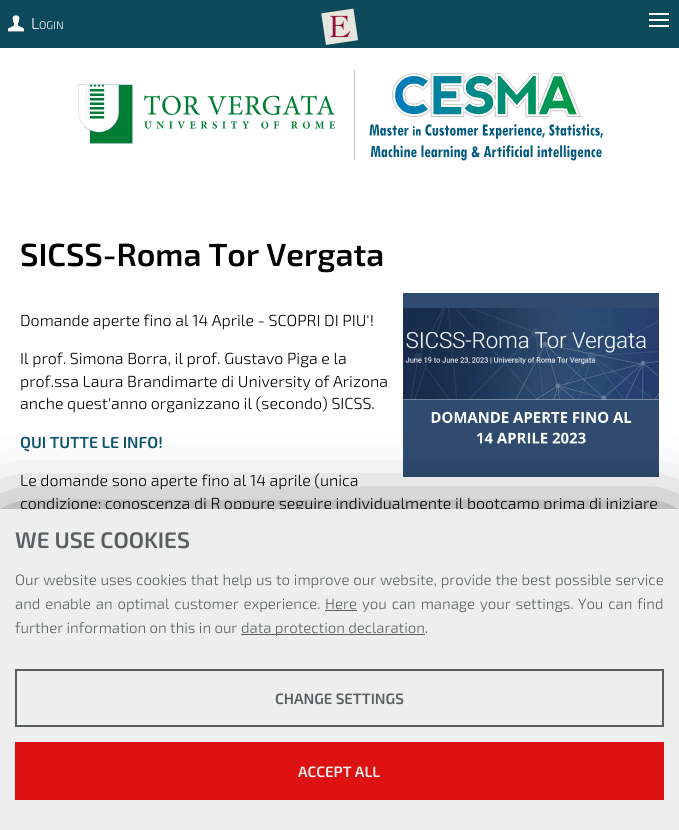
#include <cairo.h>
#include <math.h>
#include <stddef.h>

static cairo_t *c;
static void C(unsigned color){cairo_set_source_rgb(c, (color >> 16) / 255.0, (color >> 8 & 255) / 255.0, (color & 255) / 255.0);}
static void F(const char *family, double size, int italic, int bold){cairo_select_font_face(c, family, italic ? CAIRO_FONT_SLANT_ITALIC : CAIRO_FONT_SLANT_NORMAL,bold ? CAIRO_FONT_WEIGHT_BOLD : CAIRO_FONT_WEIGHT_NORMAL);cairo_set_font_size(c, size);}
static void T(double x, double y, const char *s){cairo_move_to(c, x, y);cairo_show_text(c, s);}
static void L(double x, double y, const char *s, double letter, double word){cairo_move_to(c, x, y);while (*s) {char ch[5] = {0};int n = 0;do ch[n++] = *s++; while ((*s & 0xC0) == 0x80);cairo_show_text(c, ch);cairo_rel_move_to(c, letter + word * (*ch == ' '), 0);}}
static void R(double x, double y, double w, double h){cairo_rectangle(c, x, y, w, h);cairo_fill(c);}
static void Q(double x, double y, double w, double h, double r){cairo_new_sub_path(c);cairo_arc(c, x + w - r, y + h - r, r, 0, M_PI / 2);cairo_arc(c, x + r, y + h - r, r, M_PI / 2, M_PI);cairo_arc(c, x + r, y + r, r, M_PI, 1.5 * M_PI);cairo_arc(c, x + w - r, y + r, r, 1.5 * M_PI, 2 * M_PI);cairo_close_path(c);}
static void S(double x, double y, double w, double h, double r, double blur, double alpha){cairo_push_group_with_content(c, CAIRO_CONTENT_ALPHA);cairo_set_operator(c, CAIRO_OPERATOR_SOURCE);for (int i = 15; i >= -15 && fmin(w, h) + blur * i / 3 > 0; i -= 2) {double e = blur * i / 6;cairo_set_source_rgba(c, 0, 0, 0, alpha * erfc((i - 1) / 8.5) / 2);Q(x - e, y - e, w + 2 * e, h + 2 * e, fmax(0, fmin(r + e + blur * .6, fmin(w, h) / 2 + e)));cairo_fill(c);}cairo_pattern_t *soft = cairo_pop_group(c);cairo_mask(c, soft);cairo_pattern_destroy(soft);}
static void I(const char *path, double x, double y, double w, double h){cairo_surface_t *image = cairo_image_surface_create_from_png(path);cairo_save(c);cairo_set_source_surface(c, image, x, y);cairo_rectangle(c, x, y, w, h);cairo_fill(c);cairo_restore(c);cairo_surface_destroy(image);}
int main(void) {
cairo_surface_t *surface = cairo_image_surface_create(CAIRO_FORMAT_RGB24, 679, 830);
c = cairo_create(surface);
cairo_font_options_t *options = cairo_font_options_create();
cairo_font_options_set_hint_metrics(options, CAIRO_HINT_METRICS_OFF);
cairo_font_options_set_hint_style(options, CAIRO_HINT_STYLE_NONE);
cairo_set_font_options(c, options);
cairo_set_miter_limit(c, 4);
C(0xffffff);
cairo_paint(c);
C(0x0c495b);
R(0,0,679,48);
I("1.png",8,15,16,17);
F("Exo 2 Light",16,0,0);
C(0xffffff);
T(31,29,"L");
F("Exo 2 Light",11,0,0);
T(39,29,"OGIN");
I("2.png",321,8,37,37);
R(649,13,20,2);
R(649,19,20,2);
R(649,25,20,2);
C(0xc5c5c5);
R(354,70,1,90);
I("3.png",78,84,257,60);
I("4.png",369,73,234,88);
F("Exo 2 SemiBold",32,0,0);
C(0x000000);
T(20,266,"SICSS-Roma Tor Vergata");
F("Exo 2 Light",16,0,0);
T(20,326,"Domande aperte fino al 14 Aprile - SCOPRI DI PIU'!");
I("5.png",403,293,256,184);
T(20,364,"Il prof. Simona Borra, il prof. Gustavo Piga e la");
T(20,387,"prof.ssa Laura Brandimarte di University of Arizona");
T(20,409,"anche quest'anno organizzano il (secondo) SICSS.");
F("Exo 2 SemiBold",16,0,0);
C(0x0e566b);
T(20,448,"QUI TUTTE LE INFO!");
F("Exo 2 Light",16,0,0);
C(0x000000);
T(20,486,"Le domande sono aperte fino al 14 aprile (unica");
T(20,509,"condizione: conoscenza di R oppure seguire individualmente il bootcamp prima di iniziare");
C(0x000000);
S(8,533,663,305,0,40,1);
C(0xeeeeee);
R(0,509,679,321);
F("Exo 2 SemiBold",22.5,0,0);
C(0x595f60);
T(15,548,"WE USE COOKIES");
F("Exo 2 Light",15,0,0);
L(15,585,"Our website uses cookies that help us to improve our website, provide the best possible service",0,.5);
L(15,609,"and enable an optimal customer experience.",0,1.5);
T(325,609,"Here");
R(325,610,32,1);
L(362,609,"you can manage your settings.",0,1.5);
L(578,609,"You can find",0,1.5);
T(15,633,"further information on this in our");
R(241,634,184,1);
T(241,633,"data protection declaration.");
cairo_rectangle(c,16,670,647,56);
cairo_stroke(c);
F("Exo 2 SemiBold",15,0,0);
T(275,704,"CHANGE SETTINGS");
C(0xdd1111);
R(15,742,649,58);
C(0xeeeeee);
T(298,777,"ACCEPT ALL");
cairo_surface_write_to_png(surface, "o.png");
cairo_font_options_destroy(options);
cairo_destroy(c);
cairo_surface_destroy(surface);
return 0;
}
